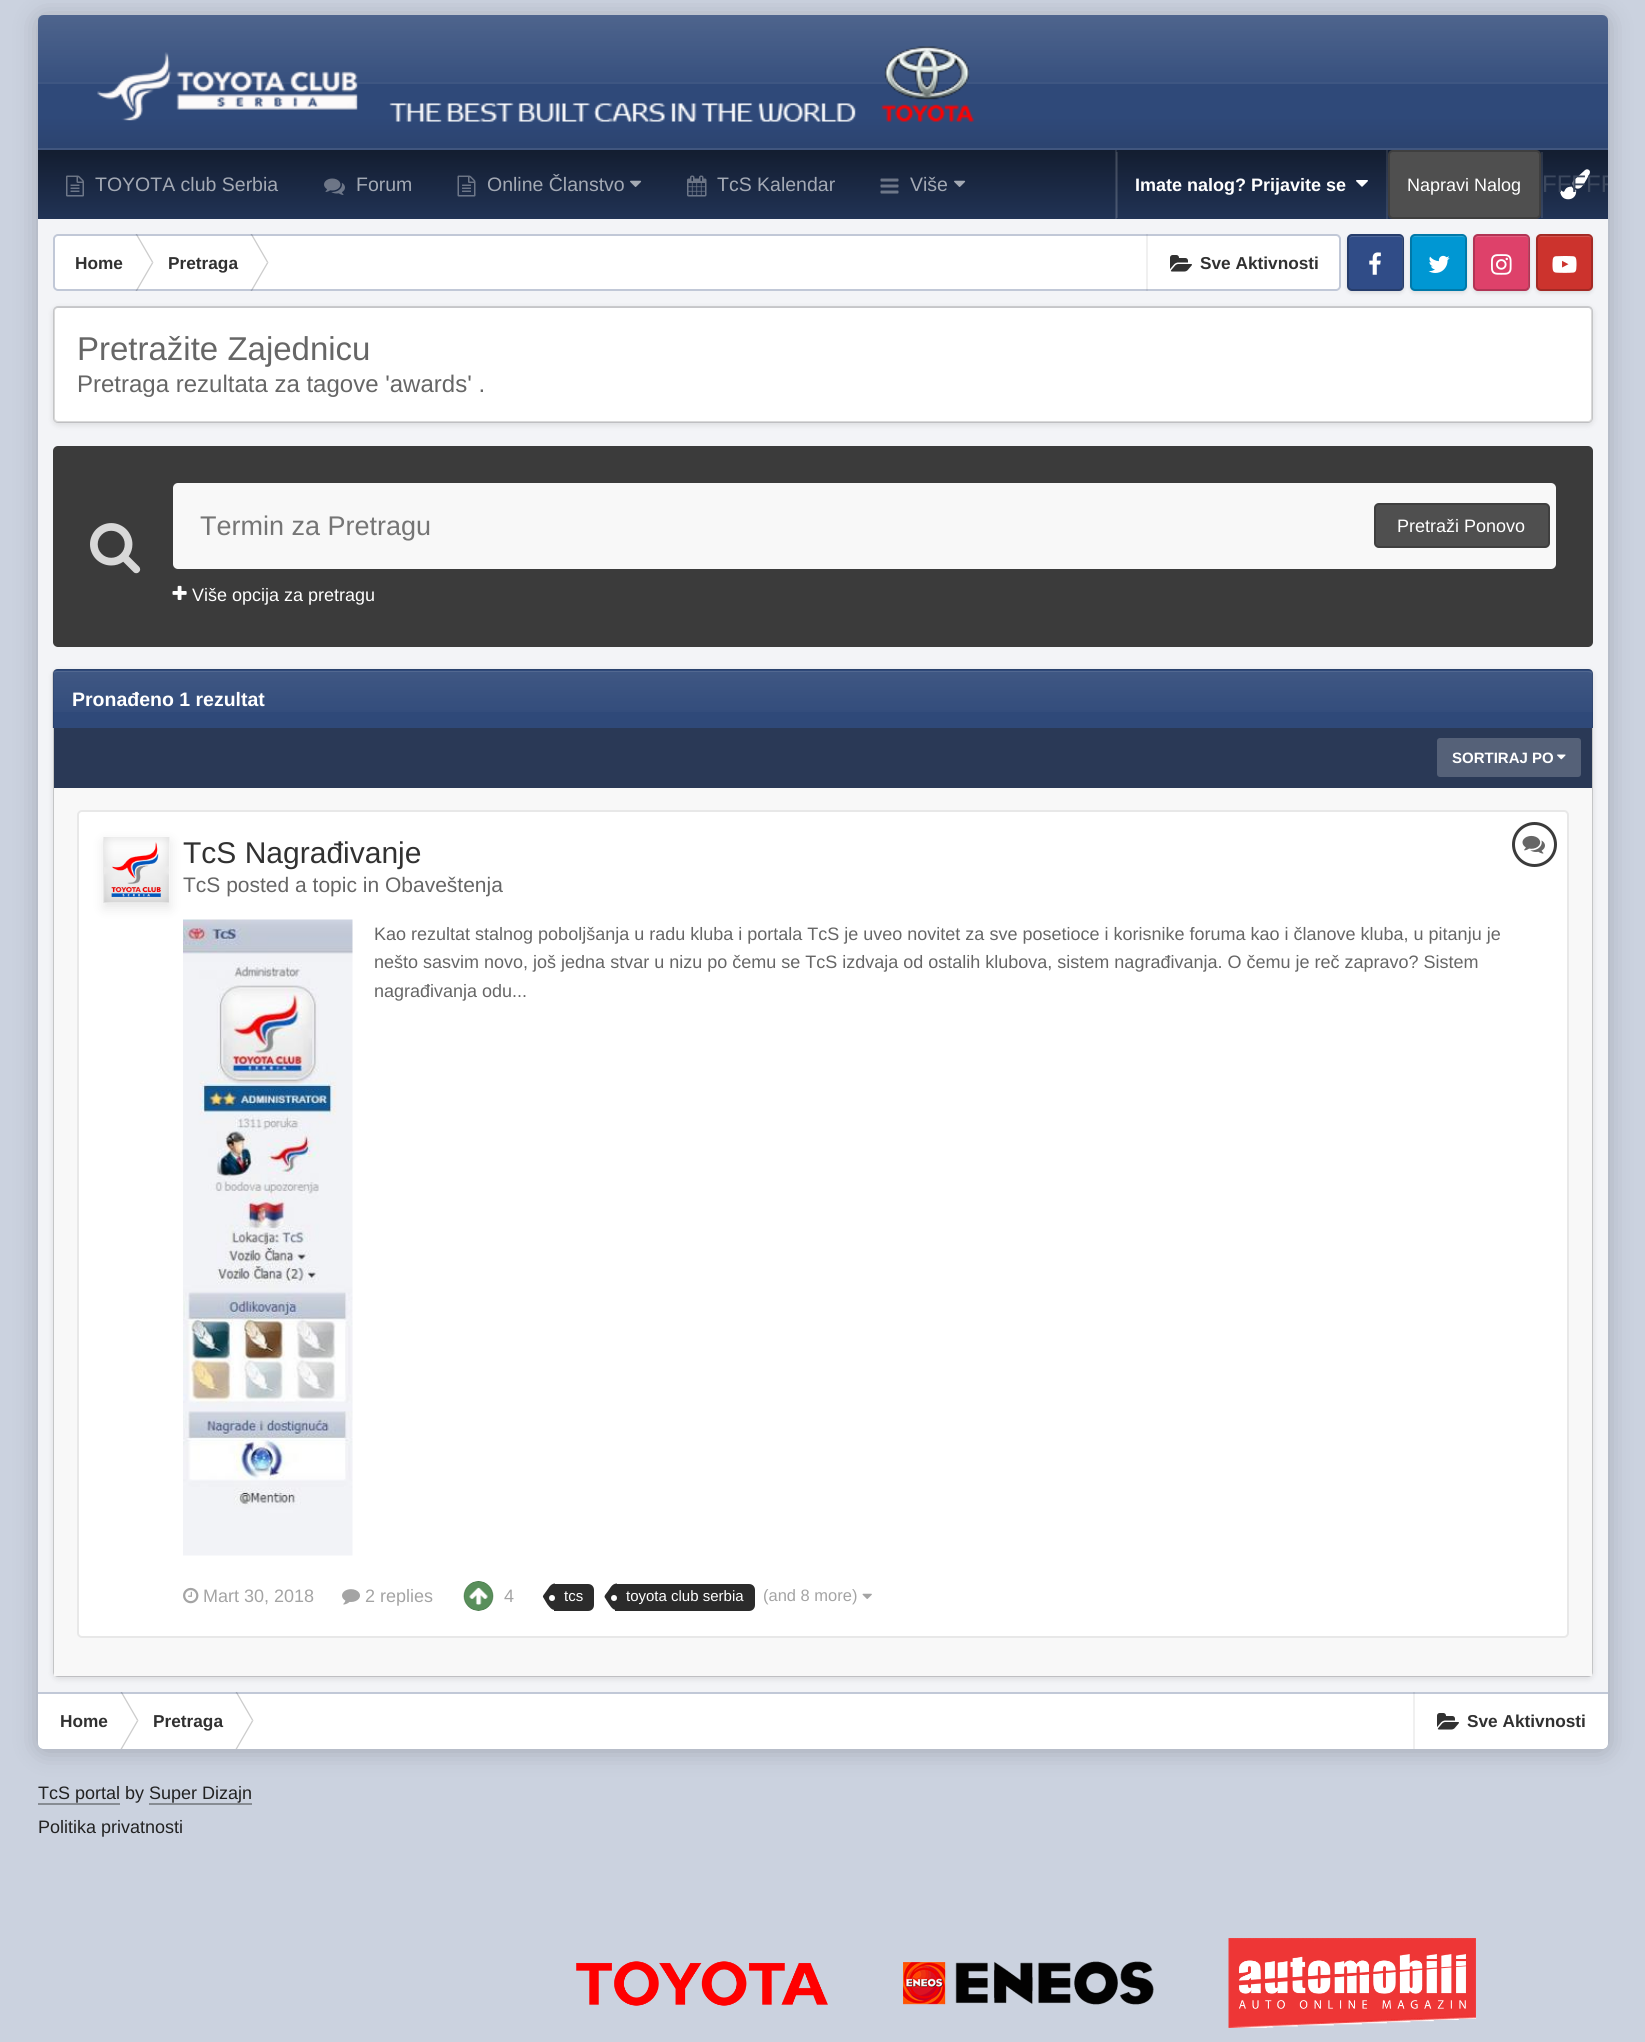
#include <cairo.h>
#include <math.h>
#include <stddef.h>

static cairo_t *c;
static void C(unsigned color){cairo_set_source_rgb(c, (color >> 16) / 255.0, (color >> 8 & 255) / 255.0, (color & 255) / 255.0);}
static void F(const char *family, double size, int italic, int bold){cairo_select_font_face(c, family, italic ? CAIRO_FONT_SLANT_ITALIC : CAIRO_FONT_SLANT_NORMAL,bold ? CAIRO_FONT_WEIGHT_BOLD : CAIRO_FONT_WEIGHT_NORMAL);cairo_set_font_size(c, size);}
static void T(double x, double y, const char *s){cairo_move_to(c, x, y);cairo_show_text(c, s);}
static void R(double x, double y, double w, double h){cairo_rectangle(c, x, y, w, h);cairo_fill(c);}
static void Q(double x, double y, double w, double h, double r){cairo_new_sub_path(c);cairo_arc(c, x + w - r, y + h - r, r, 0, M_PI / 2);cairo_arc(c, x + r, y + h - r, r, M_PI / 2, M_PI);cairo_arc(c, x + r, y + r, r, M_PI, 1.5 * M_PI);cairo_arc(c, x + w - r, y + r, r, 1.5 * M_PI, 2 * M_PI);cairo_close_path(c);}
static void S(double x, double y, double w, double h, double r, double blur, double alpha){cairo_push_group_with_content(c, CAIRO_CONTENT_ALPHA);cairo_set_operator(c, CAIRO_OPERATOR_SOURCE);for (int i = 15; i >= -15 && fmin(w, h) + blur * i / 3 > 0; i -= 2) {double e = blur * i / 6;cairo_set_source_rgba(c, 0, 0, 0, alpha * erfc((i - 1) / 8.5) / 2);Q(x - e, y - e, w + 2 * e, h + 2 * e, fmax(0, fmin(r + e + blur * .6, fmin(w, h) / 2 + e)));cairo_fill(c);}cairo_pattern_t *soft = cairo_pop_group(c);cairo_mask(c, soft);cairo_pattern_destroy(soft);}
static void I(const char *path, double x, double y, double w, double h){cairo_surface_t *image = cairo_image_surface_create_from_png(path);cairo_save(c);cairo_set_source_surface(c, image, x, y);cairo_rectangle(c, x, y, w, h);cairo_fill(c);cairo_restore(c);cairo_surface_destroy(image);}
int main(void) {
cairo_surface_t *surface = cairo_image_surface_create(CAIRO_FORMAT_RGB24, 1645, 2042);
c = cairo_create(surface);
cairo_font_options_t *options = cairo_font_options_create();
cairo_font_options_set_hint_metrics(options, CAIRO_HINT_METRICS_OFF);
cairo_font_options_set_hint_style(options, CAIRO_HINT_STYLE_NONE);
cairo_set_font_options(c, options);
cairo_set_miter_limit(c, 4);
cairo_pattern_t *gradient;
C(0xcbd2df);
cairo_paint(c);
C(0x000000);
S(38,17,1570,1734,6,12,.2);
C(0x2f4979);
Q(38,15,1570,1734,6);
cairo_fill(c);
cairo_set_source_rgba(c,1,1,1,0.94);
Q(38,15,1570,1734,6);
cairo_fill(c);
C(0x2f4979);
cairo_new_path(c);
cairo_move_to(c,44,15);
cairo_line_to(c,1602,15);
cairo_curve_to(c,1605.5,15,1608,17.5,1608,21);
cairo_line_to(c,1608,150);
cairo_line_to(c,38,150);
cairo_line_to(c,38,21);
cairo_curve_to(c,38,17.5,40.5,15,44,15);
cairo_close_path(c);
cairo_fill(c);
gradient = cairo_pattern_create_linear(823,15,823,150);
cairo_pattern_add_color_stop_rgba(gradient,0,1,1,1,.15);
cairo_pattern_add_color_stop_rgba(gradient,.5,1,1,1,.04);
cairo_pattern_add_color_stop_rgba(gradient,.5,1,1,1,.07);
cairo_pattern_add_color_stop_rgba(gradient,.51,1,1,1,.07);
cairo_pattern_add_color_stop_rgba(gradient,.51,1,1,1,0);
cairo_pattern_add_color_stop_rgba(gradient,.75,0,0,0,0);
cairo_pattern_add_color_stop_rgba(gradient,1,0,0,0,.08);
cairo_set_source(c,gradient);
cairo_pattern_destroy(gradient);
cairo_new_path(c);
cairo_move_to(c,44,15);
cairo_line_to(c,1602,15);
cairo_curve_to(c,1605.5,15,1608,17.5,1608,21);
cairo_line_to(c,1608,150);
cairo_line_to(c,38,150);
cairo_line_to(c,38,21);
cairo_curve_to(c,38,17.5,40.5,15,44,15);
cairo_close_path(c);
cairo_fill(c);
C(0x41567e);
R(38,148,1570,2);
I("1.png",97,46,877,76);
gradient = cairo_pattern_create_linear(823,150,823,219);
cairo_pattern_add_color_stop_rgba(gradient,0,0.075,0.114,0.188,1);
cairo_pattern_add_color_stop_rgba(gradient,1,0.129,0.2,0.333,1);
cairo_set_source(c,gradient);
cairo_pattern_destroy(gradient);
R(38,150,1570,69);
I("2.png",66,175,18,22);
F("Liberation Sans",19.5,0,0);
C(0xa3a9b4);
T(95,191,"TOYOTA club Serbia");
I("3.png",324,178,21,17);
T(356,191,"Forum");
I("4.png",457,175,19,22);
T(487,191,"Online Članstvo");
I("5.png",630,180,12,7);
I("6.png",687,175,20,22);
T(717,191,"TcS Kalendar");
I("7.png",880,178,19,16);
T(910,191,"Više");
I("5.png",954,180,12,7);
cairo_set_source_rgba(c,1,1,1,0.1);
R(1115,150,2,69);
R(1116,152,2,66);
F("Liberation Sans",18,0,1);
C(0xffffff);
T(1135,191,"Imate nalog? Prijavite se");
I("8.png",1356,180,12,7);
cairo_set_source_rgba(c,1,1,1,0.1);
R(1386,150,2,69);
C(0x4f4f4f);
Q(1388,150,153,69,5);
cairo_fill(c);
Q(1389,151,151,67,4);
cairo_set_source_rgba(c,0,0,0,0.2);
cairo_stroke(c);
F("Liberation Sans",18,0,0);
C(0xffffff);
T(1407,191,"Napravi Nalog");
cairo_set_source_rgba(c,1,1,1,0.1);
R(1541,152,2,66);
I("9.png",1560,169,30,31);
cairo_save(c);
cairo_rectangle(c,1542,171,66,27);
cairo_clip(c);
F("Liberation Sans",24,0,0);
C(0x3c485e);
T(1542,192,"FFFFF");
cairo_restore(c);
C(0xffffff);
Q(53,234,1288,57,5);
cairo_fill(c);
C(0xcccccc);
cairo_new_path(c);
cairo_move_to(c,135.5,234);
cairo_line_to(c,137,234);
cairo_line_to(c,153.5,262.5);
cairo_line_to(c,152,262.5);
cairo_close_path(c);
cairo_fill(c);
cairo_new_path(c);
cairo_move_to(c,152,262.5);
cairo_line_to(c,153.5,262.5);
cairo_line_to(c,137,291);
cairo_line_to(c,135.5,291);
cairo_close_path(c);
cairo_fill(c);
cairo_new_path(c);
cairo_move_to(c,250.5,234);
cairo_line_to(c,252,234);
cairo_line_to(c,268.5,262.5);
cairo_line_to(c,267,262.5);
cairo_close_path(c);
cairo_fill(c);
cairo_new_path(c);
cairo_move_to(c,267,262.5);
cairo_line_to(c,268.5,262.5);
cairo_line_to(c,252,291);
cairo_line_to(c,250.5,291);
cairo_close_path(c);
cairo_fill(c);
C(0xf0f0f0);
R(1146,234,2,57);
I("10.png",1170,255,22,17);
C(0x000000);
S(1347,236,57,57,5,2,.1);
Q(54,235,1286,55,4);
cairo_set_source_rgba(c,0.184,0.286,0.475,0.3);
cairo_stroke(c);
F("Liberation Sans",17.25,0,1);
C(0x313131);
T(75,269,"Home");
T(168,269,"Pretraga");
T(1200,269,"Sve Aktivnosti");
C(0x304c87);
Q(1347,234,57,57,5);
cairo_fill(c);
I("11.png",1369,252,12,23);
C(0x4f6799);
cairo_new_path(c);
cairo_move_to(c,1352,237);
cairo_line_to(c,1349,238);
cairo_curve_to(c,1350,237,1351,236,1352,236);
cairo_line_to(c,1400,236);
cairo_curve_to(c,1402,236,1403,237,1403,239);
cairo_line_to(c,1403,287);
cairo_curve_to(c,1403,288,1403,289,1402,289);
cairo_curve_to(c,1403,287,1402,240,1402,238);
cairo_line_to(c,1400,237);
cairo_close_path(c);
cairo_fill(c);
Q(1348,235,55,55,4);
cairo_set_source_rgba(c,0,0,0,0.2);
cairo_stroke(c);
C(0x000000);
S(1410,236,57,57,5,2,.1);
C(0x0097d3);
Q(1410,234,57,57,5);
cairo_fill(c);
C(0x26a7da);
cairo_new_path(c);
cairo_move_to(c,1414,237);
cairo_curve_to(c,1413,237,1412,238,1412,240);
cairo_curve_to(c,1412,234,1419,236,1423,236);
cairo_line_to(c,1455,236);
cairo_curve_to(c,1459,236,1466,234,1466,240);
cairo_curve_to(c,1466,238,1464,237,1462,237);
cairo_close_path(c);
cairo_fill(c);
I("12.png",1428,255,22,18);
Q(1411,235,55,55,4);
cairo_set_source_rgba(c,0,0,0,0.2);
cairo_stroke(c);
C(0x000000);
S(1473,236,57,57,5,2,.1);
C(0xde416a);
Q(1473,234,57,57,5);
cairo_fill(c);
I("13.png",1491,254,21,21);
C(0xe35e80);
cairo_new_path(c);
cairo_move_to(c,1478,237);
cairo_line_to(c,1475,238);
cairo_curve_to(c,1476,237,1477,236,1478,236);
cairo_line_to(c,1526,236);
cairo_curve_to(c,1528,236,1529,237,1529,239);
cairo_line_to(c,1529,287);
cairo_curve_to(c,1529,288,1529,289,1528,289);
cairo_curve_to(c,1529,287,1528,240,1528,238);
cairo_line_to(c,1526,237);
cairo_close_path(c);
cairo_fill(c);
Q(1474,235,55,55,4);
cairo_set_source_rgba(c,0,0,0,0.2);
cairo_stroke(c);
C(0x000000);
S(1536,236,57,57,5,2,.1);
C(0xcc332d);
Q(1536,234,57,57,5);
cairo_fill(c);
C(0xd4524d);
cairo_new_path(c);
cairo_move_to(c,1540,237);
cairo_curve_to(c,1539,237,1538,238,1538,240);
cairo_curve_to(c,1538,234,1545,236,1549,236);
cairo_line_to(c,1581,236);
cairo_curve_to(c,1585,236,1592,234,1592,240);
cairo_curve_to(c,1592,238,1590,237,1588,237);
cairo_close_path(c);
cairo_fill(c);
I("14.png",1552,256,25,17);
Q(1537,235,55,55,4);
cairo_set_source_rgba(c,0,0,0,0.2);
cairo_stroke(c);
C(0x000000);
S(53,308,1540,117,5,3,.1);
C(0xffffff);
Q(54,308,1538,114,3);
cairo_fill(c);
Q(54,307,1538,115,4);
cairo_set_source_rgba(c,0,0,0,0.15);
cairo_stroke(c);
F("Liberation Sans",33,0,0);
C(0x666666);
T(77,360,"Pretražite Zajednicu");
F("Liberation Sans",24,0,0);
T(77,392,"Pretraga rezultata za tagove 'awards' .");
C(0x3b3b3b);
Q(53,446,1540,201,5);
cairo_fill(c);
I("15.png",90,523,51,51);
C(0xffffff);
Q(173,483,1383,86,5);
cairo_fill(c);
cairo_set_source_rgba(c,0.4,0.4,0.4,0.05);
R(173,483,1383,86);
F("Liberation Sans",27,0,0);
C(0x757575);
T(200,535,"Termin za Pretragu");
C(0x4f4f4f);
Q(1374,503,176,45,5);
cairo_fill(c);
Q(1375,504,174,43,4);
cairo_set_source_rgba(c,0,0,0,0.2);
cairo_stroke(c);
F("Liberation Sans",18,0,0);
C(0xffffff);
T(1397,532,"Pretraži Ponovo");
I("16.png",172,585,15,15);
T(192,601,"Više opcija za pretragu");
C(0x000000);
S(53,671,1540,1008,5,3,.1);
Q(54,670,1538,1006,4);
cairo_set_source_rgba(c,0,0,0,0.15);
cairo_stroke(c);
C(0x2f4979);
cairo_new_path(c);
cairo_move_to(c,58,669);
cairo_line_to(c,1588,669);
cairo_curve_to(c,1591,669,1593,671,1593,674);
cairo_line_to(c,1593,728);
cairo_line_to(c,53,728);
cairo_line_to(c,53,674);
cairo_curve_to(c,53,671,55,669,58,669);
cairo_close_path(c);
cairo_fill(c);
gradient = cairo_pattern_create_linear(823,670,823,728);
cairo_pattern_add_color_stop_rgba(gradient,0,1,1,1,.08);
cairo_pattern_add_color_stop_rgba(gradient,1,1,1,1,0);
cairo_set_source(c,gradient);
cairo_pattern_destroy(gradient);
R(53,671,1540,41);
C(0x526890);
cairo_new_path(c);
cairo_move_to(c,57,672);
cairo_line_to(c,1588,672);
cairo_curve_to(c,1590,672,1592,673,1592,675);
cairo_line_to(c,1592,674);
cairo_curve_to(c,1592,672,1591,671,1589,671);
cairo_line_to(c,57,671);
cairo_curve_to(c,55,671,54,672,54,674);
cairo_line_to(c,54,675);
cairo_curve_to(c,54,673,55,672,57,672);
cairo_close_path(c);
cairo_fill(c);
cairo_set_source_rgba(c,0,0,0,0.1);
cairo_set_fill_rule(c,CAIRO_FILL_RULE_EVEN_ODD);
cairo_new_path(c);
cairo_move_to(c,57,669);
cairo_line_to(c,1588,669);
cairo_curve_to(c,1591,669,1593,671,1593,674);
cairo_line_to(c,1593,728);
cairo_line_to(c,52,728);
cairo_line_to(c,52,674);
cairo_curve_to(c,52,671,55,669,57,669);
cairo_close_path(c);
cairo_move_to(c,57,670);
cairo_line_to(c,1588,670);
cairo_curve_to(c,1590,670,1592,672,1592,674);
cairo_line_to(c,1592,728);
cairo_line_to(c,54,728);
cairo_line_to(c,54,674);
cairo_curve_to(c,54,672,55,670,57,670);
cairo_close_path(c);
cairo_fill(c);
F("Liberation Sans",19.5,0,1);
C(0xffffff);
T(72,706,"Pronađeno 1 rezultat");
C(0x2a3956);
R(54,728,1538,60);
C(0x556178);
Q(1437,738,144,39,3);
cairo_fill(c);
F("Liberation Sans",15,0,1);
C(0xffffff);
T(1452,763,"SORTIRAJ PO");
I("17.png",1557,754,9,6);
C(0xf8f8f8);
R(54,788,1538,888);
C(0xffffff);
Q(77,810,1492,828,5);
cairo_fill(c);
Q(78,811,1490,826,4);
cairo_set_source_rgba(c,0.4,0.4,0.4,0.15);
cairo_stroke(c);
I("18.png",103,837,67,66);
cairo_save(c);
cairo_new_path(c);
cairo_move_to(c,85,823);
cairo_line_to(c,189,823);
cairo_line_to(c,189,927);
cairo_line_to(c,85,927);
cairo_close_path(c);
cairo_move_to(c,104,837);
cairo_line_to(c,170,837);
cairo_line_to(c,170,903);
cairo_line_to(c,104,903);
cairo_close_path(c);
cairo_clip(c);
C(0x000000);
S(104,842,66,66,0,6,.1);
cairo_restore(c);
F("Liberation Sans",30,0,0);
C(0x313131);
T(183,863,"TcS Nagrađivanje");
F("Liberation Sans",21,0,0);
C(0x666666);
T(183,892,"TcS posted a topic in Obaveštenja");
cairo_new_path(c);
cairo_arc(c,1534.5,844.5,21,0,2 * M_PI);
C(0x3b3b3b);
cairo_set_line_width(c,3);
cairo_stroke(c);
I("19.png",1522,835,23,19);
I("20.png",183,919,170,637);
F("Liberation Sans",18,0,0);
C(0x666666);
T(374,940,"Kao rezultat stalnog poboljšanja u radu kluba i portala TcS je uveo novitet za sve posetioce i korisnike foruma kao i članove kluba, u pitanju je");
T(374,968,"nešto sasvim novo, još jedna stvar u nizu po čemu se TcS izdvaja od ostalih klubova, sistem nagrađivanja. O čemu je reč zapravo? Sistem");
T(374,997,"nagrađivanja odu...");
I("21.png",183,1587,16,17);
C(0xa4a4a4);
T(203,1602,"Mart 30, 2018");
I("22.png",342,1589,18,16);
T(365,1602,"2 replies");
I("23.png",463,1581,31,30);
T(504,1602,"4");
C(0x2b2b2b);
cairo_new_path(c);
cairo_move_to(c,554,1584);
cairo_line_to(c,588,1584);
cairo_curve_to(c,591.5,1584,594,1586.5,594,1590);
cairo_line_to(c,594,1605);
cairo_curve_to(c,594,1608.5,591.5,1611,588,1611);
cairo_line_to(c,554,1611);
cairo_close_path(c);
cairo_fill(c);
cairo_new_path(c);
cairo_move_to(c,547.5,1604.5);
cairo_line_to(c,543,1597);
cairo_line_to(c,555,1597);
cairo_line_to(c,555,1610);
cairo_curve_to(c,551.5,1610,549.5,1607,547.5,1604.5);
cairo_close_path(c);
cairo_move_to(c,555,1597);
cairo_line_to(c,555,1597);
cairo_close_path(c);
cairo_move_to(c,545,1593);
cairo_curve_to(c,548,1589.5,550,1583.5,555,1583.5);
cairo_line_to(c,555,1597);
cairo_line_to(c,543,1597);
cairo_curve_to(c,542.5,1595.5,544.5,1594,545,1593);
cairo_close_path(c);
cairo_move_to(c,555,1597);
cairo_line_to(c,555,1597);
cairo_close_path(c);
cairo_fill(c);
F("Liberation Sans",15,0,0);
C(0xffffff);
T(564,1601,"tcs");
cairo_new_path(c);
cairo_arc(c,552,1598,3,0,2 * M_PI);
cairo_fill(c);
C(0x2b2b2b);
cairo_new_path(c);
cairo_move_to(c,615,1584);
cairo_line_to(c,749,1584);
cairo_curve_to(c,752.5,1584,755,1586.5,755,1590);
cairo_line_to(c,755,1605);
cairo_curve_to(c,755,1608.5,752.5,1611,749,1611);
cairo_line_to(c,615,1611);
cairo_close_path(c);
cairo_fill(c);
cairo_set_fill_rule(c,CAIRO_FILL_RULE_WINDING);
cairo_new_path(c);
cairo_move_to(c,607,1601);
cairo_line_to(c,604.5,1597);
cairo_line_to(c,617,1597);
cairo_line_to(c,616.5,1597.5);
cairo_line_to(c,617,1597);
cairo_line_to(c,617,1610);
cairo_curve_to(c,612,1610.5,609.5,1604.5,607,1601);
cairo_close_path(c);
cairo_move_to(c,607,1592.5);
cairo_curve_to(c,610,1589,611.5,1583.5,617,1583.5);
cairo_line_to(c,617,1596.5);
cairo_line_to(c,616.5,1596.5);
cairo_line_to(c,617,1597);
cairo_line_to(c,604.5,1597);
cairo_curve_to(c,604.5,1595,606,1594,607,1592.5);
cairo_close_path(c);
cairo_fill(c);
C(0xffffff);
T(626,1601,"toyota club serbia");
cairo_new_path(c);
cairo_arc(c,614,1598,3,0,2 * M_PI);
cairo_fill(c);
F("Liberation Sans",16.5,0,0);
C(0xa4a4a4);
T(763,1601,"(and 8 more)");
I("24.png",862,1593,10,6);
C(0xffffff);
cairo_new_path(c);
cairo_move_to(c,38,1692);
cairo_line_to(c,1608,1692);
cairo_line_to(c,1608,1743);
cairo_curve_to(c,1608,1746.5,1605.5,1749,1602,1749);
cairo_line_to(c,44,1749);
cairo_curve_to(c,40.5,1749,38,1746.5,38,1743);
cairo_close_path(c);
cairo_fill(c);
C(0xcccccc);
cairo_new_path(c);
cairo_move_to(c,120.5,1692);
cairo_line_to(c,122,1692);
cairo_line_to(c,138.5,1720.5);
cairo_line_to(c,137,1720.5);
cairo_close_path(c);
cairo_fill(c);
cairo_new_path(c);
cairo_move_to(c,235.5,1692);
cairo_line_to(c,237,1692);
cairo_line_to(c,253.5,1720.5);
cairo_line_to(c,252,1720.5);
cairo_close_path(c);
cairo_fill(c);
C(0xf0f0f0);
R(1413,1692,2,57);
cairo_set_source_rgba(c,0.184,0.286,0.475,0.3);
R(38,1692,1570,2);
F("Liberation Sans",17.25,0,1);
C(0x313131);
T(60,1727,"Home");
C(0xcccccc);
cairo_new_path(c);
cairo_move_to(c,137,1720.5);
cairo_line_to(c,138.5,1720.5);
cairo_line_to(c,122,1749);
cairo_line_to(c,120.5,1749);
cairo_close_path(c);
cairo_fill(c);
C(0x313131);
T(153,1727,"Pretraga");
C(0xcccccc);
cairo_new_path(c);
cairo_move_to(c,252,1720.5);
cairo_line_to(c,253.5,1720.5);
cairo_line_to(c,237,1749);
cairo_line_to(c,235.5,1749);
cairo_close_path(c);
cairo_fill(c);
I("10.png",1437,1713,22,17);
C(0x313131);
T(1467,1727,"Sve Aktivnosti");
F("Liberation Sans",18,0,0);
C(0x222222);
T(38,1799,"TcS portal by Super Dizajn");
C(0x878c93);
R(38,1803,82,2);
R(149,1803,103,2);
C(0x222222);
T(38,1833,"Politika privatnosti");
I("25.png",576,1961,252,45);
I("26.png",903,1961,251,44);
I("27.png",1228,1938,248,90);
cairo_surface_write_to_png(surface, "o.png");
cairo_font_options_destroy(options);
cairo_destroy(c);
cairo_surface_destroy(surface);
return 0;
}
